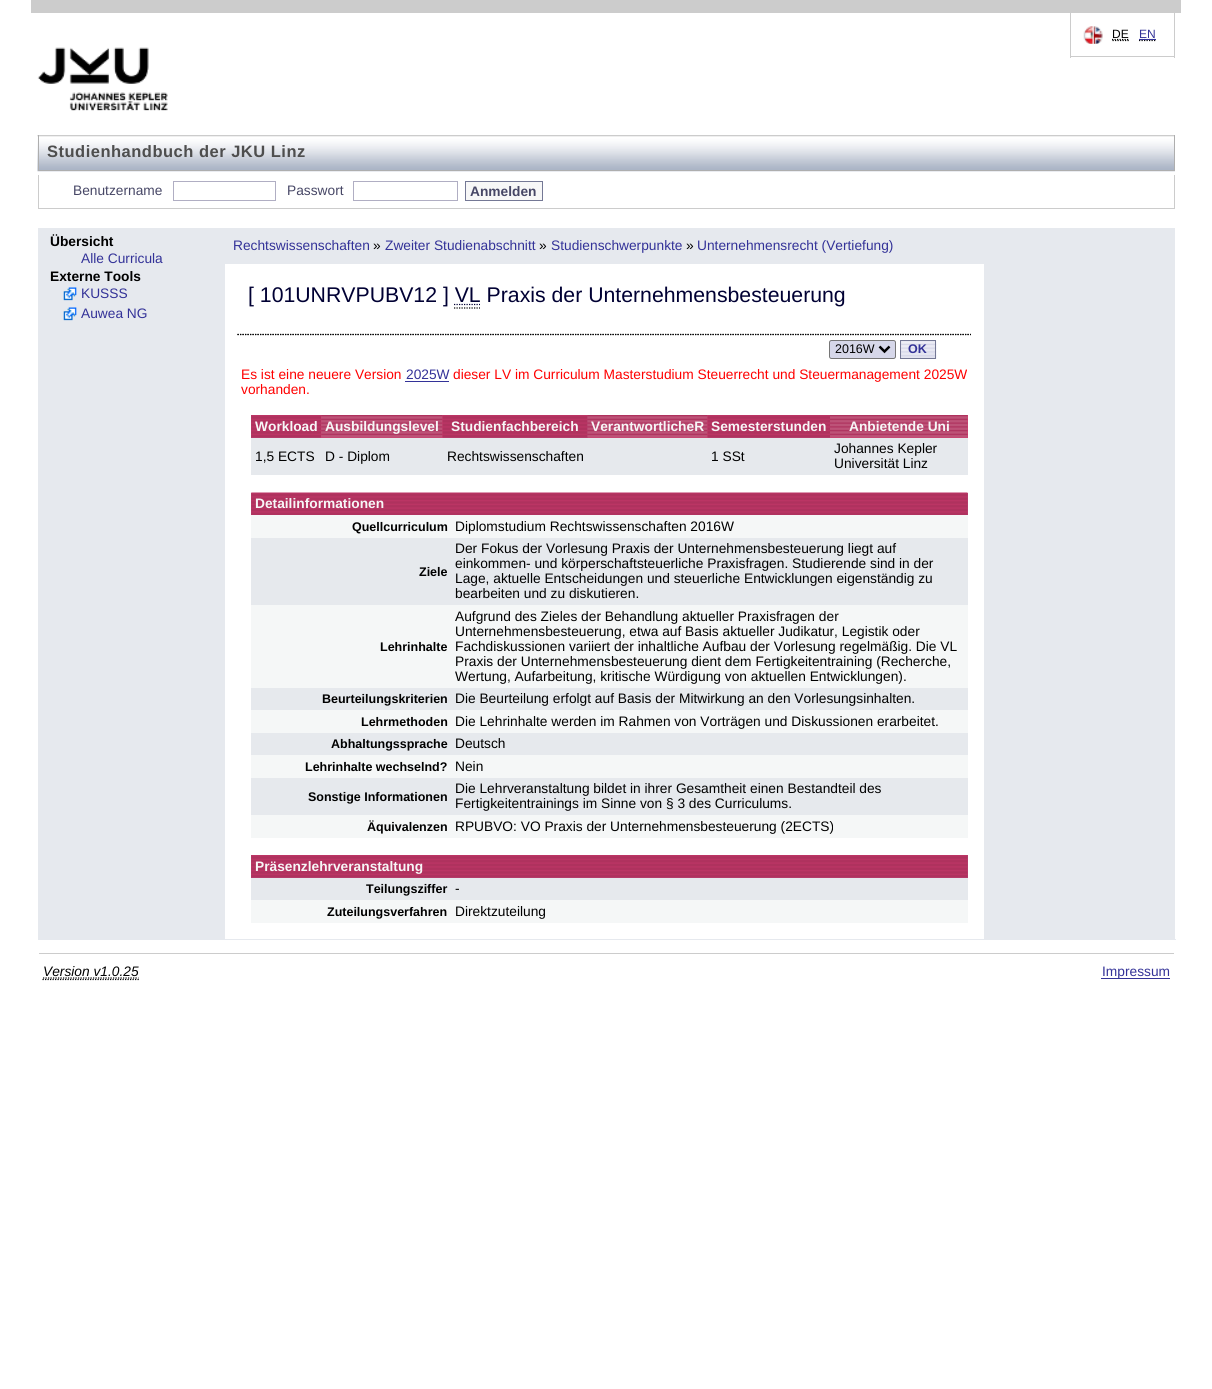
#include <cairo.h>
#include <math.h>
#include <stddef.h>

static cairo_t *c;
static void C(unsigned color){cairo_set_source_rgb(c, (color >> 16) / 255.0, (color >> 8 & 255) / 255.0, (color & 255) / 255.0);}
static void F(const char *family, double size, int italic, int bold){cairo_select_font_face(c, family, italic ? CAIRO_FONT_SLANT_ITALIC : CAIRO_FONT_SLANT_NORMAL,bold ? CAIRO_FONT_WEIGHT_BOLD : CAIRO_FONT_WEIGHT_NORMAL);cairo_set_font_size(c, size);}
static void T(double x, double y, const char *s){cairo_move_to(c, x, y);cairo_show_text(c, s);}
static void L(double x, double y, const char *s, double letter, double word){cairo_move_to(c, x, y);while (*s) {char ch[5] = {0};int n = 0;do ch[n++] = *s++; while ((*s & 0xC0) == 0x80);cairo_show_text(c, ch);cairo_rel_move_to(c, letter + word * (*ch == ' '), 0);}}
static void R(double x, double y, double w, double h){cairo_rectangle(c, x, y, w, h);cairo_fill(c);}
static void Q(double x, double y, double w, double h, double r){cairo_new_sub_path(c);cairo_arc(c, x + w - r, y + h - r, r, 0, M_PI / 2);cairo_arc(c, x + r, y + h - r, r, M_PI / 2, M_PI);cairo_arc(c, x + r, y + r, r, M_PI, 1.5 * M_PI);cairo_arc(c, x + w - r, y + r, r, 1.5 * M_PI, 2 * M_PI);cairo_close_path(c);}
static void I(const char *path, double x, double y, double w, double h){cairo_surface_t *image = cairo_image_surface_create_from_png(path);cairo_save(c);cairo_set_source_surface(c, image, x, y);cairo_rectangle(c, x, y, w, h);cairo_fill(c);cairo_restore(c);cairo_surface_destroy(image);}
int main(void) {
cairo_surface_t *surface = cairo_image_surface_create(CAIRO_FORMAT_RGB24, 1212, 1389);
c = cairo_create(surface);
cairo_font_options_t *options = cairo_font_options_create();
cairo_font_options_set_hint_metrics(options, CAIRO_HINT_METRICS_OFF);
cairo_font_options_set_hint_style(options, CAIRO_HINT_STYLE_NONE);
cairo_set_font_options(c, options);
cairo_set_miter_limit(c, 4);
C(0xffffff);
cairo_paint(c);
C(0xcccccc);
R(31,0,1150,13);
R(1174,13,1,45);
R(1070,56,105,1);
R(1070,13,1,45);
I("1.png",1083,26,20,18);
F("Liberation Sans",12,0,0);
C(0x000000);
T(1112,38,"DE");
cairo_new_path(c);
cairo_move_to(c,1112.5,40.5);
cairo_line_to(c,1129,40.5);
cairo_move_to(c,1112,39.5);
cairo_line_to(c,1129.5,39.5);
cairo_set_line_width(c,1.2);
cairo_set_dash(c,(double[]){1.25,1.25},2,0);
cairo_stroke(c);
C(0x333298);
T(1139,38,"EN");
cairo_new_path(c);
cairo_move_to(c,1139,40.5);
cairo_line_to(c,1156,40.5);
C(0x000000);
cairo_stroke(c);
cairo_new_path(c);
cairo_move_to(c,1139,39.5);
cairo_line_to(c,1156.5,39.5);
C(0x333298);
cairo_stroke(c);
R(1139,39,17,1);
I("2.png",37,47,131,64);
I("3.png",37,135,1138,37);
C(0xaeaeae);
R(1174,135,1,36);
R(38,170,1137,1);
R(38,135,1,36);
F("Liberation Sans",16.5,0,1);
C(0x4e4e4e);
L(47,157,"Studienhandbuch der JKU Linz",.5,0);
C(0xcccccc);
R(1174,175,1,34);
R(38,208,1137,1);
R(38,175,1,34);
F("Liberation Sans",13.75,0,0);
C(0x474766);
T(73,195,"Benutzername");
cairo_rectangle(c,173.5,181.5,102,19);
C(0xb0aec3);
cairo_set_line_width(c,1);
cairo_set_dash(c,NULL,0,0);
cairo_stroke(c);
C(0x474766);
T(287,195,"Passwort");
cairo_rectangle(c,353.5,181.5,104,19);
C(0xb0aec3);
cairo_stroke(c);
C(0xf7f7f7);
cairo_rectangle(c,465.5,181.5,77,19);
cairo_fill_preserve(c);
C(0x747895);
cairo_stroke(c);
F("Liberation Sans",13.75,0,1);
C(0x474766);
T(470,196,"Anmelden");
C(0xe6e9ee);
R(38,228,187,711);
C(0x000000);
T(50,246,"Übersicht");
F("Liberation Sans",13.75,0,0);
C(0x333298);
T(81,263,"Alle Curricula");
F("Liberation Sans",13.75,0,1);
C(0x000000);
T(50,281,"Externe Tools");
I("4.png",63,287,14,14);
F("Liberation Sans",13.75,0,0);
C(0x333298);
T(81,298,"KUSSS");
I("5.png",63,307,14,14);
T(81,318,"Auwea NG");
C(0xe6e9ee);
R(225,228,950,36);
C(0x333298);
T(233,250,"Rechtswissenschaften");
C(0x000000);
T(373,250,"»");
C(0x333298);
T(385,250,"Zweiter Studienabschnitt");
C(0x000000);
T(539,250,"»");
C(0x333298);
T(551,250,"Studienschwerpunkte");
C(0x000000);
T(686,250,"»");
C(0x333298);
T(697,250,"Unternehmensrecht (Vertiefung)");
C(0xe6e9ee);
R(984,263,1,676);
cairo_new_path(c);
cairo_move_to(c,237.5,334.5);
cairo_line_to(c,971,334.5);
C(0x000000);
cairo_set_line_width(c,1.2);
cairo_set_dash(c,(double[]){1.25,1.25},2,0);
cairo_stroke(c);
cairo_new_path(c);
cairo_move_to(c,237.5,334.5);
cairo_line_to(c,971,334.5);
cairo_stroke(c);
F("Liberation Sans",21.25,0,0);
C(0x000033);
T(248,302,"[ 101UNRVPUBV12 ] VL Praxis der Unternehmensbesteuerung");
cairo_new_path(c);
cairo_move_to(c,454,304.5);
cairo_line_to(c,480,304.5);
cairo_stroke(c);
cairo_new_path(c);
cairo_move_to(c,454,308);
cairo_line_to(c,480,308);
C(0x000000);
cairo_stroke(c);
C(0xd6d7e9);
Q(829.5,340.5,66,18,2);
cairo_fill_preserve(c);
C(0x767676);
cairo_set_line_width(c,1);
cairo_set_dash(c,NULL,0,0);
cairo_stroke(c);
cairo_new_path(c);
cairo_move_to(c,879.5,346.5);
cairo_line_to(c,884.5,351.5);
cairo_line_to(c,889.5,346.5);
C(0x000000);
cairo_set_line_width(c,2.5);
cairo_stroke(c);
F("Liberation Sans",12.5,0,0);
T(835,353,"2016W");
C(0xd6d7e9);
R(901,341,34,17);
I("6.png",901,341,36,18);
cairo_rectangle(c,900.5,340.5,35,18);
C(0x747895);
cairo_set_line_width(c,1);
cairo_stroke(c);
F("Liberation Sans",12.5,0,1);
C(0x333298);
T(908,353,"OK");
F("Liberation Sans",13.75,0,0);
C(0xff0000);
T(241,379,"Es ist eine neuere Version");
C(0x333298);
T(406,379,"2025W");
R(405,381,44,1);
C(0xff0000);
T(453,379,"dieser LV im Curriculum Masterstudium Steuerrecht und Steuermanagement 2025W");
T(241,394,"vorhanden.");
C(0xb24372);
R(251,415,70,23);
I("7.png",251,415,70,23);
F("Liberation Sans",13.75,0,1);
C(0xf7f7f7);
T(255,431,"Workload");
C(0xd03b6f);
R(321,415,122,23);
I("8.png",321,415,122,23);
C(0xf7f7f7);
T(325,431,"Ausbildungslevel");
C(0xb24372);
R(443,415,145,23);
I("9.png",442,415,146,23);
C(0xf7f7f7);
T(451,431,"Studienfachbereich");
C(0xd03b6f);
R(588,415,120,23);
I("10.png",587,415,121,23);
C(0xf7f7f7);
T(591,431,"VerantwortlicheR");
C(0xb24372);
R(708,437,122,1);
I("11.png",707,415,123,23);
C(0xf7f7f7);
T(711,431,"Semesterstunden");
C(0xd03b6f);
R(830,415,138,23);
I("12.png",830,415,138,23);
C(0xf7f7f7);
T(849,431,"Anbietende Uni");
C(0xe6e9ed);
R(251,438,717,37);
F("Liberation Sans",13.75,0,0);
C(0x000000);
T(255,461,"1,5 ECTS");
T(325,461,"D - Diplom");
T(447,461,"Rechtswissenschaften");
T(711,461,"1 SSt");
T(834,453,"Johannes Kepler");
T(834,468,"Universität Linz");
C(0xb24372);
R(251,493,717,22);
I("13.png",251,492,717,23);
F("Liberation Sans",13.75,0,1);
C(0xf7f7f7);
T(255,508,"Detailinformationen");
C(0xf5f7f7);
R(251,515,717,23);
F("Liberation Sans",12.5,0,1);
C(0x000000);
T(352,531,"Quellcurriculum");
F("Liberation Sans",13.75,0,0);
T(455,531,"Diplomstudium Rechtswissenschaften 2016W");
C(0xe6e9ed);
R(251,538,717,67);
F("Liberation Sans",12.5,0,1);
C(0x000000);
T(419,576,"Ziele");
F("Liberation Sans",13.75,0,0);
T(455,553,"Der Fokus der Vorlesung Praxis der Unternehmensbesteuerung liegt auf");
T(455,568,"einkommen- und körperschaftsteuerliche Praxisfragen. Studierende sind in der");
T(455,583,"Lage, aktuelle Entscheidungen und steuerliche Entwicklungen eigenständig zu");
T(455,598,"bearbeiten und zu diskutieren.");
C(0xf5f7f7);
R(251,605,717,83);
F("Liberation Sans",12.5,0,1);
C(0x000000);
T(380,651,"Lehrinhalte");
F("Liberation Sans",13.75,0,0);
T(455,621,"Aufgrund des Zieles der Behandlung aktueller Praxisfragen der");
T(455,636,"Unternehmensbesteuerung, etwa auf Basis aktueller Judikatur, Legistik oder");
T(455,651,"Fachdiskussionen variiert der inhaltliche Aufbau der Vorlesung regelmäßig. Die VL");
T(455,666,"Praxis der Unternehmensbesteuerung dient dem Fertigkeitentraining (Recherche,");
T(455,681,"Wertung, Aufarbeitung, kritische Würdigung von aktuellen Entwicklungen).");
C(0xe6e9ed);
R(251,688,717,22);
F("Liberation Sans",12.5,0,1);
C(0x000000);
T(322,703,"Beurteilungskriterien");
F("Liberation Sans",13.75,0,0);
T(455,703,"Die Beurteilung erfolgt auf Basis der Mitwirkung an den Vorlesungsinhalten.");
C(0xf5f7f7);
R(251,710,717,23);
F("Liberation Sans",12.5,0,1);
C(0x000000);
T(361,726,"Lehrmethoden");
F("Liberation Sans",13.75,0,0);
T(455,726,"Die Lehrinhalte werden im Rahmen von Vorträgen und Diskussionen erarbeitet.");
C(0xe6e9ed);
R(251,733,717,22);
F("Liberation Sans",12.5,0,1);
C(0x000000);
T(331,748,"Abhaltungssprache");
F("Liberation Sans",13.75,0,0);
T(455,748,"Deutsch");
C(0xf5f7f7);
R(251,755,717,23);
F("Liberation Sans",12.5,0,1);
C(0x000000);
T(305,771,"Lehrinhalte wechselnd?");
F("Liberation Sans",13.75,0,0);
T(455,771,"Nein");
C(0xe6e9ed);
R(251,778,717,37);
F("Liberation Sans",12.5,0,1);
C(0x000000);
T(308,801,"Sonstige Informationen");
F("Liberation Sans",13.75,0,0);
T(455,793,"Die Lehrveranstaltung bildet in ihrer Gesamtheit einen Bestandteil des");
T(455,808,"Fertigkeitentrainings im Sinne von § 3 des Curriculums.");
C(0xf5f7f7);
R(251,815,717,23);
F("Liberation Sans",12.5,0,1);
C(0x000000);
T(367,831,"Äquivalenzen");
F("Liberation Sans",13.75,0,0);
T(455,831,"RPUBVO: VO Praxis der Unternehmensbesteuerung (2ECTS)");
C(0xb24372);
R(251,855,717,23);
I("14.png",251,855,717,23);
F("Liberation Sans",13.75,0,1);
C(0xf7f7f7);
T(255,871,"Präsenzlehrveranstaltung");
C(0xe6e9ed);
R(251,878,717,22);
F("Liberation Sans",12.5,0,1);
C(0x000000);
T(366,893,"Teilungsziffer");
F("Liberation Sans",13.75,0,0);
T(455,893,"-");
C(0xf5f7f7);
R(251,900,717,23);
F("Liberation Sans",12.5,0,1);
C(0x000000);
T(327,916,"Zuteilungsverfahren");
F("Liberation Sans",13.75,0,0);
T(455,916,"Direktzuteilung");
C(0xe6e9ee);
R(985,264,190,675);
R(38,939,1138,1);
C(0xcccccc);
R(39,953,1135,1);
F("Liberation Sans",13.75,1,0);
C(0x000000);
T(43,976,"Version v1.0.25");
cairo_new_path(c);
cairo_move_to(c,42.5,979.5);
cairo_line_to(c,139,979.5);
cairo_set_line_width(c,1.2);
cairo_set_dash(c,(double[]){1.25,1.25},2,0);
cairo_stroke(c);
cairo_new_path(c);
cairo_move_to(c,43,978);
cairo_line_to(c,138.5,978);
cairo_stroke(c);
C(0x333298);
R(1101,978,69,1);
F("Liberation Sans",13.75,0,0);
T(1102,976,"Impressum");
cairo_surface_write_to_png(surface, "o.png");
cairo_font_options_destroy(options);
cairo_destroy(c);
cairo_surface_destroy(surface);
return 0;
}
